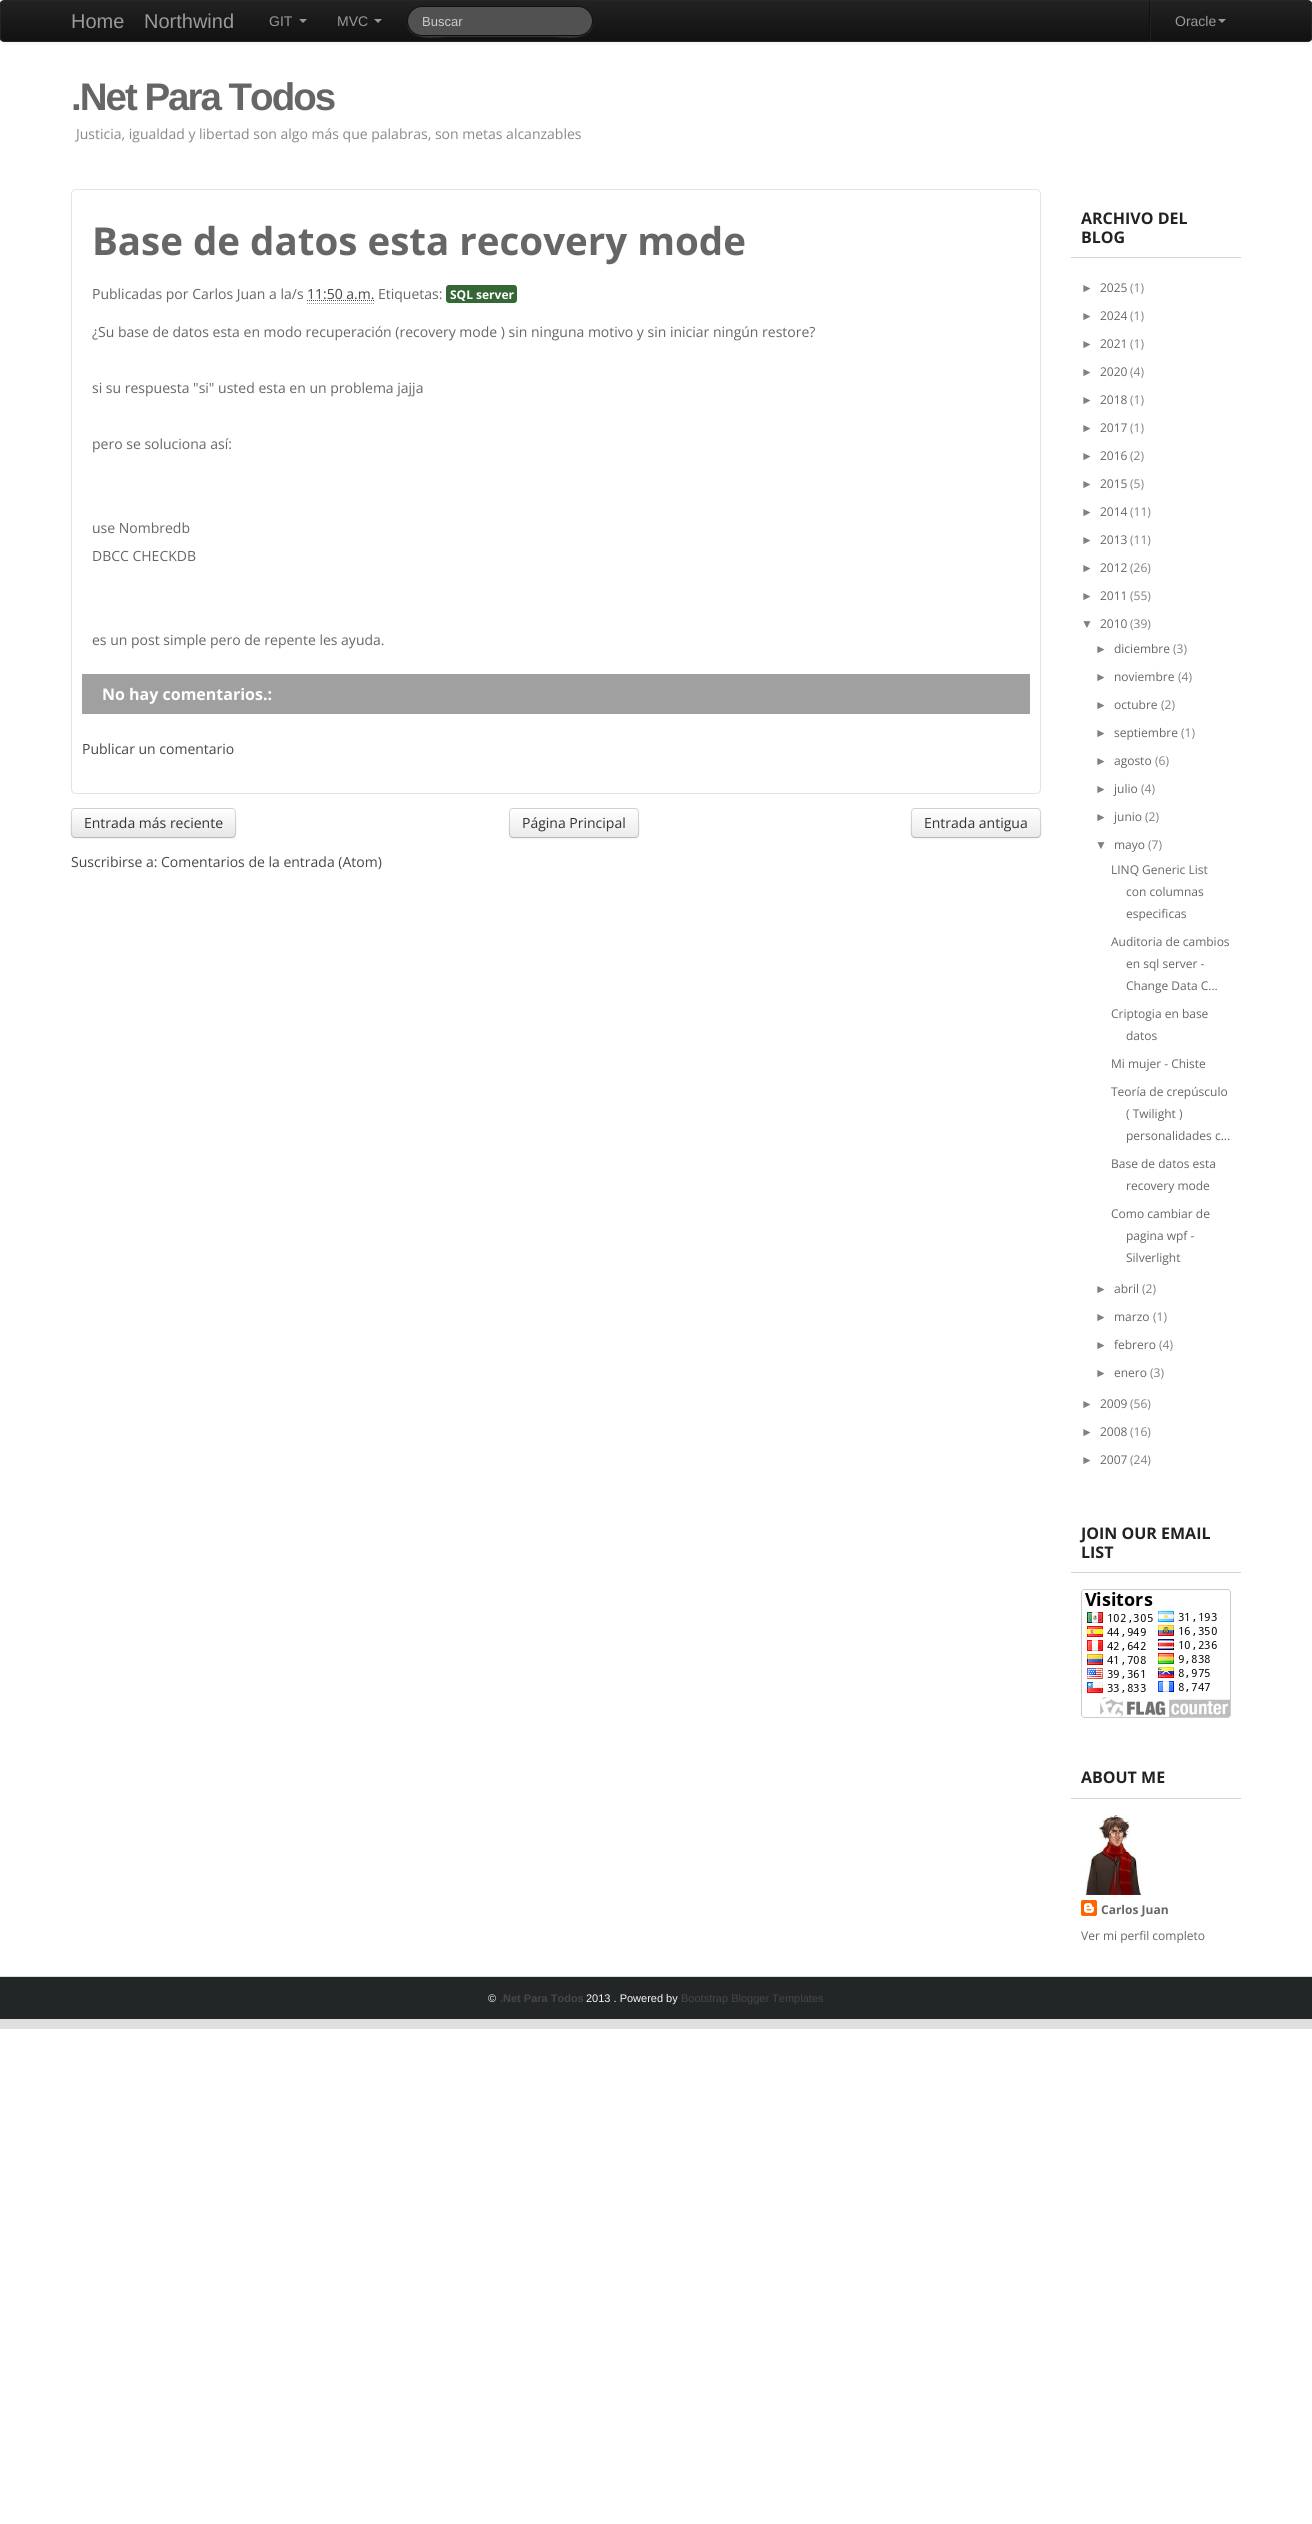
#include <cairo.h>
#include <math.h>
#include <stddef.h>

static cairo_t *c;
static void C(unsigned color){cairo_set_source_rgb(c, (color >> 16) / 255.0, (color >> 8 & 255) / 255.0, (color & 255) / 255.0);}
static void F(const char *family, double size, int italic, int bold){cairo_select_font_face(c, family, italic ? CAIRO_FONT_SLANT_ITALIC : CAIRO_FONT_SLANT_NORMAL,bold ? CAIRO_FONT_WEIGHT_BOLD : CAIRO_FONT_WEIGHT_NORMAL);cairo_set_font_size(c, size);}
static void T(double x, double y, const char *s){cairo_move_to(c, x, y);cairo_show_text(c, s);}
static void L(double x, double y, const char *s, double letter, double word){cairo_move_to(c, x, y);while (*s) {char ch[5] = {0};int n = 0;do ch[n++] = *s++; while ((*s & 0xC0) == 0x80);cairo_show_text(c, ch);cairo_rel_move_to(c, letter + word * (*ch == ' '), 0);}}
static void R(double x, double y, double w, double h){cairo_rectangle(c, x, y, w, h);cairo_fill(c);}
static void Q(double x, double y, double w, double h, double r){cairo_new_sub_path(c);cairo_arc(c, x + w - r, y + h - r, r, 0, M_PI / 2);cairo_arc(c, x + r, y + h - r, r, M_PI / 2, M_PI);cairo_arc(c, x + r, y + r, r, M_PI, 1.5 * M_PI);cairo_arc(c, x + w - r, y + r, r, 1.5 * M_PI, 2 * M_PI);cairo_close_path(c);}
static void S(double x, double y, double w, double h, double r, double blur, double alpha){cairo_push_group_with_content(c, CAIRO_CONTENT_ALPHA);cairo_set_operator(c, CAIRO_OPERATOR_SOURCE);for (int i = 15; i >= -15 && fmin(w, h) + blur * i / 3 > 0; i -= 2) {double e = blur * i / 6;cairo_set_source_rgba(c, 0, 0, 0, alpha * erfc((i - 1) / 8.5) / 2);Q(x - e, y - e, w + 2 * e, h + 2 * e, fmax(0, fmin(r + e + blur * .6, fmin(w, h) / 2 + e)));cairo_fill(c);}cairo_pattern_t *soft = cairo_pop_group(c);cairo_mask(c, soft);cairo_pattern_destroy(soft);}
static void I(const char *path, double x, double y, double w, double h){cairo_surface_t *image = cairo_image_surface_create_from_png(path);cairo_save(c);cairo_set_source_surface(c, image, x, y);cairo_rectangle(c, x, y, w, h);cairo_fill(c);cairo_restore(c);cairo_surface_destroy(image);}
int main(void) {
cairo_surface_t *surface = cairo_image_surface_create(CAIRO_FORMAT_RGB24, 1312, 2524);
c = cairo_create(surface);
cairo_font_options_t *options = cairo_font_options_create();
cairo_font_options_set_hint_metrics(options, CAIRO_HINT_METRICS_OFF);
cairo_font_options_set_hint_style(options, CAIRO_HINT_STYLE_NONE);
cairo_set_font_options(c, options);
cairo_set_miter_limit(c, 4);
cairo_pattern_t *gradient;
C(0xffffff);
cairo_paint(c);
C(0x000000);
S(0,1,1312,42,4,2,.07);
cairo_save(c);
Q(0,0,1312,42,4);
cairo_clip(c);
gradient = cairo_pattern_create_linear(656,1,656,41);
cairo_pattern_add_color_stop_rgba(gradient,0,0.133,0.133,0.133,1);
cairo_pattern_add_color_stop_rgba(gradient,1,0.067,0.067,0.067,1);
cairo_set_source(c,gradient);
cairo_pattern_destroy(gradient);
R(0,1,1312,40);
cairo_restore(c);
Q(.5,.5,1311,41,3.5);
C(0x252525);
cairo_set_line_width(c,1);
cairo_stroke(c);
F("Liberation Sans",20,0,0);
C(0x999999);
T(71,28,"Home");
T(144,28,"Northwind");
F("Liberation Sans",14,0,0);
T(269,26,"GIT");
cairo_new_path(c);
cairo_move_to(c,299,19);
cairo_line_to(c,307,19);
cairo_line_to(c,303,23);
cairo_close_path(c);
cairo_fill(c);
T(337,26,"MVC");
cairo_new_path(c);
cairo_move_to(c,374,19);
cairo_line_to(c,382,19);
cairo_line_to(c,378,23);
cairo_close_path(c);
cairo_fill(c);
cairo_set_source_rgba(c,1,1,1,0.15);
cairo_new_path(c);
cairo_move_to(c,407,21);
cairo_curve_to(c,406,43,437,37,448,37);
cairo_line_to(c,552,37);
cairo_curve_to(c,563,37,594,43,593,21);
cairo_curve_to(c,593,30,586,36,578,36);
cairo_line_to(c,422,36);
cairo_curve_to(c,414,36,407,30,407,21);
cairo_close_path(c);
cairo_fill(c);
C(0x515151);
Q(407.5,6.5,185,29,14.5);
cairo_fill_preserve(c);
C(0x111111);
cairo_stroke(c);
F("Liberation Sans",13,0,0);
C(0xcccccc);
T(422,26,"Buscar");
C(0x222222);
R(1150,1,1,40);
C(0x111111);
R(1149,1,1,40);
F("Liberation Sans",14,0,0);
C(0x999999);
T(1175,26,"Oracle");
cairo_new_path(c);
cairo_move_to(c,1218,19);
cairo_line_to(c,1226,19);
cairo_line_to(c,1222,23);
cairo_close_path(c);
cairo_fill(c);
F("Liberation Sans",38.5,0,1);
C(0x666666);
L(71,110,".Net Para Todos",-2,0);
F("Open Sans",14,0,0);
C(0x888888);
T(76,139,"Justicia, igualdad y libertad son algo más que palabras, son metas alcanzables");
Q(71.5,189.5,969,604,4.5);
C(0xe3e3e3);
cairo_stroke(c);
F("Open Sans",38.5,0,1);
C(0x666666);
T(92,255,"Base de datos esta recovery mode");
F("Open Sans",14,0,0);
T(92,299,"Publicadas por Carlos Juan a la/s");
C(0x464646);
T(307,299,"11:50 a.m.");
cairo_new_path(c);
cairo_move_to(c,307,303.5);
cairo_line_to(c,375,303.5);
C(0x999999);
cairo_set_dash(c,(double[]){1,1},2,0);
cairo_stroke(c);
cairo_new_path(c);
cairo_move_to(c,307,300.5);
cairo_line_to(c,374.5,300.5);
C(0x464646);
cairo_stroke(c);
C(0x666666);
T(378,299,"Etiquetas:");
C(0x356635);
Q(446,285,71,18,3);
cairo_fill(c);
F("Open Sans",12,0,1);
C(0xffffff);
T(450,299,"SQL server");
F("Open Sans",14,0,0);
C(0x666666);
T(92,337,"¿Su base de datos esta en modo recuperación (recovery mode ) sin ninguna motivo y sin iniciar ningún restore?");
T(92,393,"si su respuesta \"si\" usted esta en un problema jajja");
T(92,449,"pero se soluciona así:");
T(92,533,"use Nombredb");
T(92,561,"DBCC CHECKDB");
T(92,645,"es un post simple pero de repente les ayuda.");
C(0xa0a0a0);
R(82,674,948,40);
F("Open Sans",16,0,1);
C(0xffffff);
T(102,700,"No hay comentarios.:");
F("Open Sans",14,0,0);
C(0x464646);
T(82,754,"Publicar un comentario");
C(0x000000);
S(71,809,165,30,4,1,.05);
C(0xf5f5f5);
Q(71,808,165,30,4);
cairo_fill(c);
cairo_save(c);
Q(71,808,165,30,4);
cairo_clip(c);
gradient = cairo_pattern_create_linear(154,809,154,837);
cairo_pattern_add_color_stop_rgba(gradient,0,1,1,1,1);
cairo_pattern_add_color_stop_rgba(gradient,1,0.902,0.902,0.902,1);
cairo_set_source(c,gradient);
cairo_pattern_destroy(gradient);
R(71,809,165,28);
cairo_restore(c);
cairo_new_path(c);
cairo_move_to(c,234.5,836.5);
cairo_curve_to(c,234,837,233,837.5,232,837.5);
cairo_line_to(c,75,837.5);
cairo_curve_to(c,74,837.5,73,837,72.5,836.5);
C(0xb8b8b8);
cairo_set_dash(c,NULL,0,0);
cairo_stroke(c);
cairo_new_path(c);
cairo_move_to(c,72.5,836.5);
cairo_curve_to(c,70.5,834.5,71.5,826,71.5,823);
cairo_line_to(c,71.5,815.5);
cairo_curve_to(c,71.5,813,71,808.5,75,808.5);
cairo_line_to(c,232,808.5);
cairo_curve_to(c,236,808.5,235.5,813,235.5,815.5);
cairo_line_to(c,235.5,823);
cairo_curve_to(c,235.5,826,236.5,834.5,234.5,836.5);
cairo_set_source_rgba(c,0,0,0,0.15);
cairo_stroke(c);
C(0x333333);
T(84,828,"Entrada más reciente");
C(0x000000);
S(509,809,130,30,4,1,.05);
C(0xf5f5f5);
Q(509,808,130,30,4);
cairo_fill(c);
cairo_save(c);
Q(509,808,130,30,4);
cairo_clip(c);
gradient = cairo_pattern_create_linear(574,809,574,837);
cairo_pattern_add_color_stop_rgba(gradient,0,1,1,1,1);
cairo_pattern_add_color_stop_rgba(gradient,1,0.902,0.902,0.902,1);
cairo_set_source(c,gradient);
cairo_pattern_destroy(gradient);
R(509,809,130,28);
cairo_restore(c);
cairo_set_source_rgba(c,1,1,1,0.2);
cairo_new_path(c);
cairo_move_to(c,513,809);
cairo_curve_to(c,511,809,510,810,510,812);
cairo_line_to(c,510,834);
cairo_curve_to(c,510,836,511,837,513,837);
cairo_line_to(c,635,837);
cairo_curve_to(c,637,837,638,836,638,834);
cairo_line_to(c,638,812);
cairo_curve_to(c,638,810,637,809,635,809);
cairo_close_path(c);
cairo_fill(c);
cairo_new_path(c);
cairo_move_to(c,637.5,836.5);
cairo_curve_to(c,637,837,636,837.5,635,837.5);
cairo_line_to(c,513,837.5);
cairo_curve_to(c,512,837.5,511,837,510.5,836.5);
C(0xb8b8b8);
cairo_stroke(c);
cairo_new_path(c);
cairo_move_to(c,510.5,836.5);
cairo_curve_to(c,508.5,834.5,509.5,826,509.5,823);
cairo_line_to(c,509.5,815.5);
cairo_curve_to(c,509.5,813,509,808.5,513,808.5);
cairo_line_to(c,635,808.5);
cairo_curve_to(c,639,808.5,638.5,813,638.5,815.5);
cairo_line_to(c,638.5,823);
cairo_curve_to(c,638.5,826,639.5,834.5,637.5,836.5);
cairo_set_source_rgba(c,0,0,0,0.15);
cairo_stroke(c);
C(0x333333);
T(522,828,"Página Principal");
C(0x000000);
S(911,809,130,30,4,1,.05);
C(0xf5f5f5);
Q(911,808,130,30,4);
cairo_fill(c);
cairo_save(c);
Q(911,808,130,30,4);
cairo_clip(c);
gradient = cairo_pattern_create_linear(976,809,976,837);
cairo_pattern_add_color_stop_rgba(gradient,0,1,1,1,1);
cairo_pattern_add_color_stop_rgba(gradient,1,0.902,0.902,0.902,1);
cairo_set_source(c,gradient);
cairo_pattern_destroy(gradient);
R(911,809,130,28);
cairo_restore(c);
cairo_set_source_rgba(c,1,1,1,0.2);
cairo_new_path(c);
cairo_move_to(c,915,809);
cairo_curve_to(c,913,809,912,810,912,812);
cairo_line_to(c,912,834);
cairo_curve_to(c,912,836,913,837,915,837);
cairo_line_to(c,1037,837);
cairo_curve_to(c,1039,837,1040,836,1040,834);
cairo_line_to(c,1040,812);
cairo_curve_to(c,1040,810,1039,809,1037,809);
cairo_close_path(c);
cairo_fill(c);
cairo_new_path(c);
cairo_move_to(c,1039.5,836.5);
cairo_curve_to(c,1039,837,1038,837.5,1037,837.5);
cairo_line_to(c,915,837.5);
cairo_curve_to(c,914,837.5,913,837,912.5,836.5);
C(0xb8b8b8);
cairo_stroke(c);
cairo_new_path(c);
cairo_move_to(c,912.5,836.5);
cairo_curve_to(c,910.5,834.5,911.5,826,911.5,823);
cairo_line_to(c,911.5,815.5);
cairo_curve_to(c,911.5,813,911,808.5,915,808.5);
cairo_line_to(c,1037,808.5);
cairo_curve_to(c,1041,808.5,1040.5,813,1040.5,815.5);
cairo_line_to(c,1040.5,823);
cairo_curve_to(c,1040.5,826,1041.5,834.5,1039.5,836.5);
cairo_set_source_rgba(c,0,0,0,0.15);
cairo_stroke(c);
C(0x333333);
T(924,828,"Entrada antigua");
C(0x464646);
T(71,867,"Suscribirse a:");
T(161,867,"Comentarios de la entrada (Atom)");
C(0xd3d3d3);
R(1071,257,170,1);
F("Open Sans",16,0,1);
C(0x222222);
T(1081,224,"ARCHIVO DEL");
T(1081,243,"BLOG");
F("Liberation Sans",12,0,0);
C(0x808080);
T(1081,292,"►");
F("Open Sans",12,0,0);
C(0x666666);
T(1100,292,"2025");
C(0x808080);
T(1130,292,"(1)");
F("Liberation Sans",12,0,0);
T(1081,320,"►");
F("Open Sans",12,0,0);
C(0x666666);
T(1100,320,"2024");
C(0x808080);
T(1130,320,"(1)");
F("Liberation Sans",12,0,0);
T(1081,348,"►");
F("Open Sans",12,0,0);
C(0x666666);
T(1100,348,"2021");
C(0x808080);
T(1130,348,"(1)");
F("Liberation Sans",12,0,0);
T(1081,376,"►");
F("Open Sans",12,0,0);
C(0x666666);
T(1100,376,"2020");
C(0x808080);
T(1130,376,"(4)");
F("Liberation Sans",12,0,0);
T(1081,404,"►");
F("Open Sans",12,0,0);
C(0x666666);
T(1100,404,"2018");
C(0x808080);
T(1130,404,"(1)");
F("Liberation Sans",12,0,0);
T(1081,432,"►");
F("Open Sans",12,0,0);
C(0x666666);
T(1100,432,"2017");
C(0x808080);
T(1130,432,"(1)");
F("Liberation Sans",12,0,0);
T(1081,460,"►");
F("Open Sans",12,0,0);
C(0x666666);
T(1100,460,"2016");
C(0x808080);
T(1130,460,"(2)");
F("Liberation Sans",12,0,0);
T(1081,488,"►");
F("Open Sans",12,0,0);
C(0x666666);
T(1100,488,"2015");
C(0x808080);
T(1130,488,"(5)");
F("Liberation Sans",12,0,0);
T(1081,516,"►");
F("Open Sans",12,0,0);
C(0x666666);
T(1100,516,"2014");
C(0x808080);
T(1130,516,"(11)");
F("Liberation Sans",12,0,0);
T(1081,544,"►");
F("Open Sans",12,0,0);
C(0x666666);
T(1100,544,"2013");
C(0x808080);
T(1130,544,"(11)");
F("Liberation Sans",12,0,0);
T(1081,572,"►");
F("Open Sans",12,0,0);
C(0x666666);
T(1100,572,"2012");
C(0x808080);
T(1130,572,"(26)");
F("Liberation Sans",12,0,0);
T(1081,600,"►");
F("Open Sans",12,0,0);
C(0x666666);
T(1100,600,"2011");
C(0x808080);
T(1130,600,"(55)");
F("Liberation Sans",12,0,0);
T(1081,628,"▼");
F("Open Sans",12,0,0);
C(0x666666);
T(1100,628,"2010");
C(0x808080);
T(1130,628,"(39)");
F("Liberation Sans",12,0,0);
T(1095,653,"►");
F("Open Sans",12,0,0);
C(0x666666);
T(1114,653,"diciembre");
C(0x808080);
T(1173,653,"(3)");
F("Liberation Sans",12,0,0);
T(1095,681,"►");
F("Open Sans",12,0,0);
C(0x666666);
T(1114,681,"noviembre");
C(0x808080);
T(1178,681,"(4)");
F("Liberation Sans",12,0,0);
T(1095,709,"►");
F("Open Sans",12,0,0);
C(0x666666);
T(1114,709,"octubre");
C(0x808080);
T(1161,709,"(2)");
F("Liberation Sans",12,0,0);
T(1095,737,"►");
F("Open Sans",12,0,0);
C(0x666666);
T(1114,737,"septiembre");
C(0x808080);
T(1181,737,"(1)");
F("Liberation Sans",12,0,0);
T(1095,765,"►");
F("Open Sans",12,0,0);
C(0x666666);
T(1114,765,"agosto");
C(0x808080);
T(1155,765,"(6)");
F("Liberation Sans",12,0,0);
T(1095,793,"►");
F("Open Sans",12,0,0);
C(0x666666);
T(1114,793,"julio");
C(0x808080);
T(1141,793,"(4)");
F("Liberation Sans",12,0,0);
T(1095,821,"►");
F("Open Sans",12,0,0);
C(0x666666);
T(1114,821,"junio");
C(0x808080);
T(1145,821,"(2)");
F("Liberation Sans",12,0,0);
T(1095,849,"▼");
F("Open Sans",12,0,0);
C(0x666666);
T(1114,849,"mayo");
C(0x808080);
T(1148,849,"(7)");
C(0x666666);
T(1111,874,"LINQ Generic List");
T(1126,896,"con columnas");
T(1126,918,"especificas");
T(1111,946,"Auditoria de cambios");
T(1126,968,"en sql server -");
T(1126,990,"Change Data C...");
T(1111,1018,"Criptogia en base");
T(1126,1040,"datos");
T(1111,1068,"Mi mujer - Chiste");
T(1111,1096,"Teoría de crepúsculo");
T(1126,1118,"( Twilight )");
T(1126,1140,"personalidades c...");
T(1111,1168,"Base de datos esta");
T(1126,1190,"recovery mode");
T(1111,1218,"Como cambiar de");
T(1126,1240,"pagina wpf -");
T(1126,1262,"Silverlight");
F("Liberation Sans",12,0,0);
C(0x808080);
T(1095,1293,"►");
F("Open Sans",12,0,0);
C(0x666666);
T(1114,1293,"abril");
C(0x808080);
T(1142,1293,"(2)");
F("Liberation Sans",12,0,0);
T(1095,1321,"►");
F("Open Sans",12,0,0);
C(0x666666);
T(1114,1321,"marzo");
C(0x808080);
T(1153,1321,"(1)");
F("Liberation Sans",12,0,0);
T(1095,1349,"►");
F("Open Sans",12,0,0);
C(0x666666);
T(1114,1349,"febrero");
C(0x808080);
T(1159,1349,"(4)");
F("Liberation Sans",12,0,0);
T(1095,1377,"►");
F("Open Sans",12,0,0);
C(0x666666);
T(1114,1377,"enero");
C(0x808080);
T(1150,1377,"(3)");
F("Liberation Sans",12,0,0);
T(1081,1408,"►");
F("Open Sans",12,0,0);
C(0x666666);
T(1100,1408,"2009");
C(0x808080);
T(1130,1408,"(56)");
F("Liberation Sans",12,0,0);
T(1081,1436,"►");
F("Open Sans",12,0,0);
C(0x666666);
T(1100,1436,"2008");
C(0x808080);
T(1130,1436,"(16)");
F("Liberation Sans",12,0,0);
T(1081,1464,"►");
F("Open Sans",12,0,0);
C(0x666666);
T(1100,1464,"2007");
C(0x808080);
T(1130,1464,"(24)");
C(0xd3d3d3);
R(1071,1572,170,1);
F("Open Sans",16,0,1);
C(0x222222);
T(1081,1539,"JOIN OUR EMAIL");
T(1081,1558,"LIST");
I("1.png",1081,1589,150,129);
C(0xd3d3d3);
R(1071,1798,170,1);
C(0x222222);
T(1081,1783,"ABOUT ME");
I("2.png",1086,1815,55,80);
I("3.png",1081,1900,16,16);
F("Open Sans",12,0,1);
C(0x666666);
T(1101,1914,"Carlos Juan");
F("Open Sans",12,0,0);
T(1081,1940,"Ver mi perfil completo");
C(0xdfdfdf);
R(0,1976,1312,53);
C(0x232627);
R(0,1977,1312,42);
F("Liberation Sans",11,0,0);
C(0xf9f9f9);
T(488,2002,"©");
F("Liberation Sans",11,0,1);
C(0x464646);
T(500,2002,".Net Para Todos");
F("Liberation Sans",11,0,0);
C(0xf9f9f9);
T(586,2002,"2013 . Powered by");
C(0x464646);
T(681,2002,"Bootstrap Blogger Templates");
cairo_surface_write_to_png(surface, "o.png");
cairo_font_options_destroy(options);
cairo_destroy(c);
cairo_surface_destroy(surface);
return 0;
}
